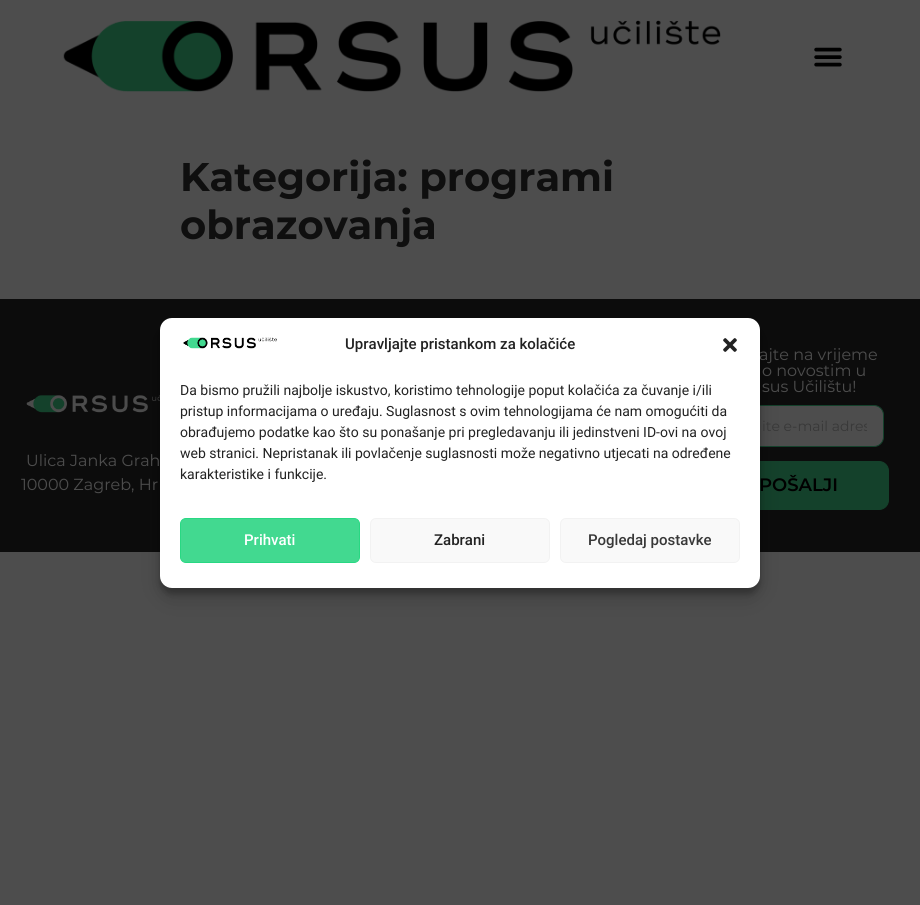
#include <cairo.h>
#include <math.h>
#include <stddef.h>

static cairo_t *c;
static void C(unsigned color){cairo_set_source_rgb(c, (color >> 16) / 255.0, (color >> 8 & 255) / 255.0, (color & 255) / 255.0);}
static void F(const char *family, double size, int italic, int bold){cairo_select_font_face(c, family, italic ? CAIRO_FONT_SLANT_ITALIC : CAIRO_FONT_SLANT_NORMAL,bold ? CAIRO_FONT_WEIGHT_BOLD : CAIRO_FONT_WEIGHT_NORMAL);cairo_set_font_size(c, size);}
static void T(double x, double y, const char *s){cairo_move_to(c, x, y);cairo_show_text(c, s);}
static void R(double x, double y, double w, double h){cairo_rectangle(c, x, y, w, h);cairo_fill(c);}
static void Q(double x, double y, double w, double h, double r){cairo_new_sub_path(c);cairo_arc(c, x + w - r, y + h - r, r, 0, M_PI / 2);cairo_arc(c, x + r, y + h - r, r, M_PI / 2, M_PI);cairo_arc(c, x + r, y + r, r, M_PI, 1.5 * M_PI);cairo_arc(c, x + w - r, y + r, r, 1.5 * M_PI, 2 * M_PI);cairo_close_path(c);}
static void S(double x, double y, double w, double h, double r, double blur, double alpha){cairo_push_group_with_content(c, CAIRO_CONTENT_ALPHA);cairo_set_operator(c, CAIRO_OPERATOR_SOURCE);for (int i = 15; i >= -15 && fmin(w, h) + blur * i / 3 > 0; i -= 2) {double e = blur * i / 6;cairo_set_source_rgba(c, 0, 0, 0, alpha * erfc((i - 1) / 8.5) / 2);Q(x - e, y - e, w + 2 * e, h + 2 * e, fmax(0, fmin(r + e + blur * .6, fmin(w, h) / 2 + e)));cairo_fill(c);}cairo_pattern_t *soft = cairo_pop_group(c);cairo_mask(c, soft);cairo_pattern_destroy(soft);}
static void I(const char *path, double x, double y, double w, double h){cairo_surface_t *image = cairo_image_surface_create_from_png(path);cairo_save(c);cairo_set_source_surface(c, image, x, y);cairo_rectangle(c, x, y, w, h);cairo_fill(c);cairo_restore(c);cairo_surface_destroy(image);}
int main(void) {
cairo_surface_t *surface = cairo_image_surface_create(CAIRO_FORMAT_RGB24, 920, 905);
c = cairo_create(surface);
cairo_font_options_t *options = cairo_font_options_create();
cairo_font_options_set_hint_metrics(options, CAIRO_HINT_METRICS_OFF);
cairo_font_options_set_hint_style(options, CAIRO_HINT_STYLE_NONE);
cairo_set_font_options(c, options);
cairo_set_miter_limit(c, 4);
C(0x4d4d4d);
cairo_paint(c);
I("1.png",63,20,658,72);
I("2.png",814,47,28,20);
F("Montserrat",40,0,1);
C(0x0f0f0f);
T(180,191,"Kategorija: programi");
T(180,239,"obrazovanja");
C(0x0c0c0c);
R(0,299,920,253);
I("5.png",26,395,134,18);
C(0x4d4d4d);
Q(714.5,405.5,169,41,9.5);
cairo_fill_preserve(c);
C(0x14412b);
cairo_set_line_width(c,1);
cairo_stroke(c);
Q(708.5,461.5,180,48,9.5);
cairo_fill_preserve(c);
cairo_stroke(c);
C(0x000000);
S(160,324,600,270,12,3,.23);
S(160,328,600,270,12,10,.19);
F("Montserrat",16,0,0);
C(0x4d4d4d);
T(759,360,"ajte na vrijeme");
C(0xffffff);
Q(160,318,600,270,12);
cairo_fill(c);
I("3.png",183,337,94,12);
F("Roboto Medium",15,0,0);
C(0x222222);
T(345,349,"Upravljajte pristankom za kolačiće");
I("4.png",723,338,14,14);
F("Roboto",14,0,0);
T(180,395,"Da bismo pružili najbolje iskustvo, koristimo tehnologije poput kolačića za čuvanje i/ili");
T(180,416,"pristup informacijama o uređaju. Suglasnost s ovim tehnologijama će nam omogućiti da");
T(180,437,"obrađujemo podatke kao što su ponašanje pri pregledavanju ili jedinstveni ID-ovi na ovoj");
T(180,458,"web stranici. Nepristanak ili povlačenje suglasnosti može negativno utjecati na određene");
T(180,479,"karakteristike i funkcije.");
C(0x42d990);
Q(180.5,518.5,179,44,5.5);
cairo_fill_preserve(c);
C(0x29d883);
cairo_stroke(c);
F("Roboto Medium",15,0,0);
C(0xffffff);
T(244,545,"Prihvati");
C(0xf9f9f9);
Q(370.5,518.5,179,44,5.5);
cairo_fill_preserve(c);
C(0xf2f2f2);
cairo_stroke(c);
C(0x222222);
T(434,545,"Zabrani");
C(0xf9f9f9);
Q(560.5,518.5,179,44,5.5);
cairo_fill_preserve(c);
C(0xf2f2f2);
cairo_stroke(c);
C(0x383838);
T(588,545,"Pogledaj postavke");
F("Montserrat",16,0,0);
C(0x4d4d4d);
T(26,466,"Ulica Janka Grah");
T(21,490,"10000 Zagreb, Hr");
T(762,376,"o novostim u");
T(762,392,"sus Učilištu!");
cairo_save(c);
cairo_rectangle(c,731,417,136,18);
cairo_clip(c);
F("Montserrat",14,0,0);
C(0x383838);
T(762,431,"ite e-mail adres");
cairo_restore(c);
F("Montserrat SemiBold",18,0,0);
C(0x000000);
T(759,491,"POŠALJI");
cairo_surface_write_to_png(surface, "o.png");
cairo_font_options_destroy(options);
cairo_destroy(c);
cairo_surface_destroy(surface);
return 0;
}
